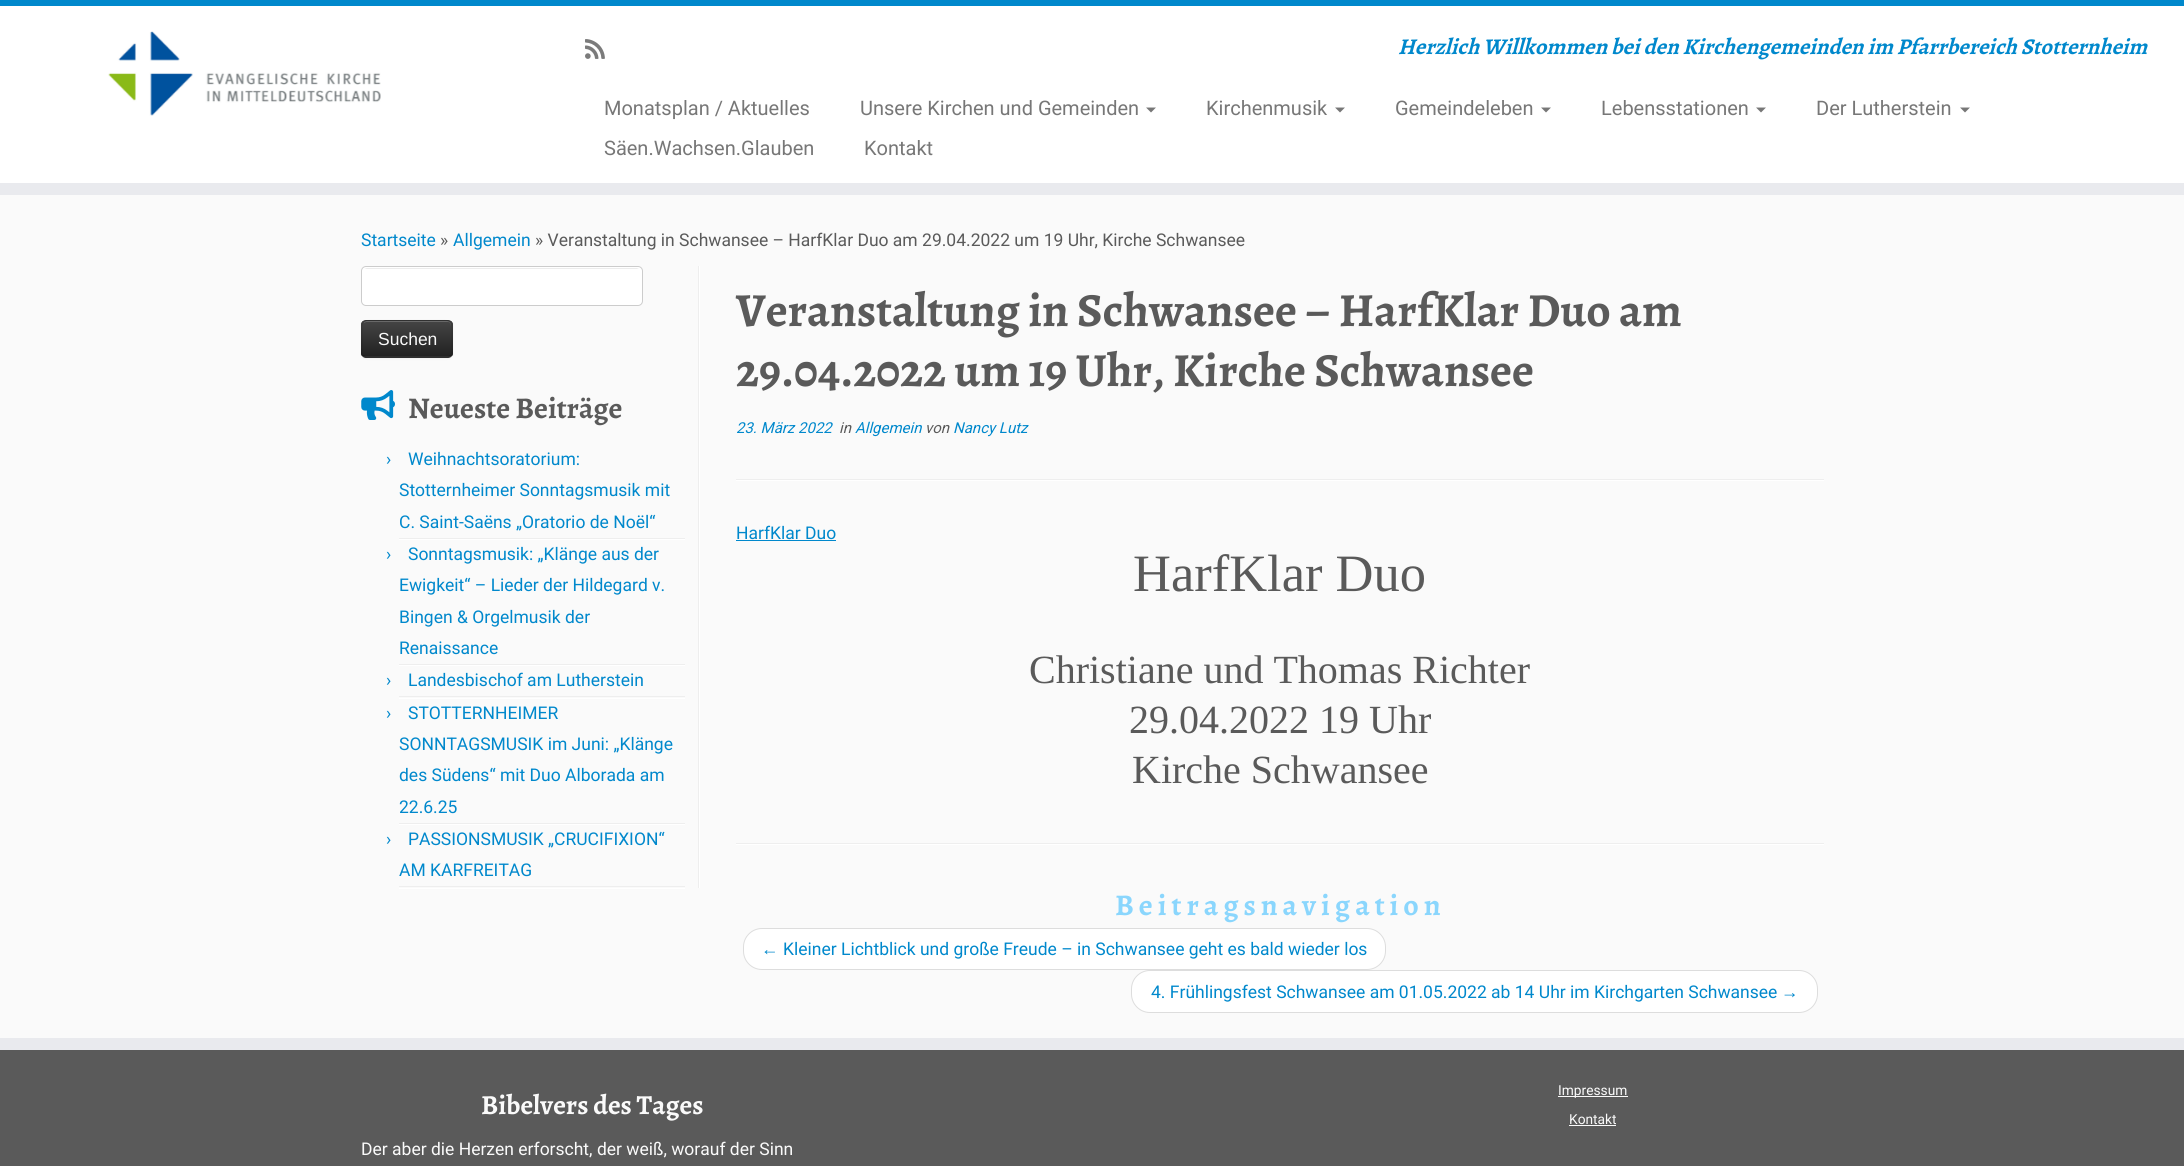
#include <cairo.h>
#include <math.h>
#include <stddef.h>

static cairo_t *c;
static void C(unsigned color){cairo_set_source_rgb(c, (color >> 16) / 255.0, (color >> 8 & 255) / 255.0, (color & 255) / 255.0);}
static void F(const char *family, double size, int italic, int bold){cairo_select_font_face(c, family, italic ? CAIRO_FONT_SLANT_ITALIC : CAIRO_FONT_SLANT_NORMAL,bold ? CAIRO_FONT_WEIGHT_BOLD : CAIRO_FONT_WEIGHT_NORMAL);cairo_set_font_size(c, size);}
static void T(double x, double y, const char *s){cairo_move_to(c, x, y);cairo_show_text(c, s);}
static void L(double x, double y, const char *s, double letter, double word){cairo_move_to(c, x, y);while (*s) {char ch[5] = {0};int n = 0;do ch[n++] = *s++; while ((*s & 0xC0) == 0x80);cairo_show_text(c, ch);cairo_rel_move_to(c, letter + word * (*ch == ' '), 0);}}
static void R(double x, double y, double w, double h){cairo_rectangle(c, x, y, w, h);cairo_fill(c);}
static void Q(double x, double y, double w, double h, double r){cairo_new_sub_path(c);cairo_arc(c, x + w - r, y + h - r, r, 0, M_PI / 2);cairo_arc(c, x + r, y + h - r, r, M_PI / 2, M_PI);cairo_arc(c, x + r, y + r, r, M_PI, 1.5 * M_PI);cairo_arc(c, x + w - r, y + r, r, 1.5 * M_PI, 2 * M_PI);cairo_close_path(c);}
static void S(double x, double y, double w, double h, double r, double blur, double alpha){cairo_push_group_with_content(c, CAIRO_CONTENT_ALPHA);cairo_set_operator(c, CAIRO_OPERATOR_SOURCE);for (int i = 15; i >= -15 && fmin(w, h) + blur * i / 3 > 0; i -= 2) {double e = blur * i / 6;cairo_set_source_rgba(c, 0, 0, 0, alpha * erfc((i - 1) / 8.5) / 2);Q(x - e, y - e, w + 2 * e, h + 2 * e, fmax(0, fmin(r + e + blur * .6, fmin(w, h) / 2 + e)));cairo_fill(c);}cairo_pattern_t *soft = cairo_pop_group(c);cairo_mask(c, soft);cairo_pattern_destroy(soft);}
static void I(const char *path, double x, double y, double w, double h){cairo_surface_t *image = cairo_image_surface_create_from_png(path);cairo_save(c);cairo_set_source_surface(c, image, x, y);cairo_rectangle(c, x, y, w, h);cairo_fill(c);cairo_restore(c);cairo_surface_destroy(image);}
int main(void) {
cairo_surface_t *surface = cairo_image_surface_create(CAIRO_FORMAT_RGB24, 2184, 1166);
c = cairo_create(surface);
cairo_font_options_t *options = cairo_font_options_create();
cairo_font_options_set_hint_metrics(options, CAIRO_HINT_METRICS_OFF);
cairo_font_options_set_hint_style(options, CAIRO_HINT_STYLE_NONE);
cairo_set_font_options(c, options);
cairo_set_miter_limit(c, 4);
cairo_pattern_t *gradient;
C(0xfafafa);
cairo_paint(c);
C(0xffffff);
R(0,6,2184,177);
C(0x0088cc);
R(0,0,2184,6);
C(0xe9eaee);
R(0,183,2184,12);
I("1.png",108,31,273,85);
I("2.png",585,39,20,20);
F("Alegreya",22.5,1,1);
C(0x0088cc);
T(1398,54,"Herzlich Willkommen bei den Kirchengemeinden im Pfarrbereich Stotternheim");
F("Roboto",20,0,0);
C(0x777777);
T(604,115,"Monatsplan / Aktuelles");
T(860,115,"Unsere Kirchen und Gemeinden");
cairo_new_path(c);
cairo_move_to(c,1146,107.5);
cairo_line_to(c,1156,107.5);
cairo_line_to(c,1151,112.5);
cairo_close_path(c);
cairo_fill(c);
T(1206,115,"Kirchenmusik");
cairo_new_path(c);
cairo_move_to(c,1335,107.5);
cairo_line_to(c,1345,107.5);
cairo_line_to(c,1340,112.5);
cairo_close_path(c);
cairo_fill(c);
T(1395,115,"Gemeindeleben");
cairo_new_path(c);
cairo_move_to(c,1541,107.5);
cairo_line_to(c,1551,107.5);
cairo_line_to(c,1546,112.5);
cairo_close_path(c);
cairo_fill(c);
T(1601,115,"Lebensstationen");
cairo_new_path(c);
cairo_move_to(c,1756,107.5);
cairo_line_to(c,1766,107.5);
cairo_line_to(c,1761,112.5);
cairo_close_path(c);
cairo_fill(c);
T(1816,115,"Der Lutherstein");
cairo_new_path(c);
cairo_move_to(c,1960,107.5);
cairo_line_to(c,1970,107.5);
cairo_line_to(c,1965,112.5);
cairo_close_path(c);
cairo_fill(c);
T(604,155,"Säen.Wachsen.Glauben");
T(864,155,"Kontakt");
F("Roboto",17.5,0,0);
C(0x0088cc);
T(361,246,"Startseite");
C(0x5a5a5a);
T(440,246,"»");
C(0x0088cc);
T(453,246,"Allgemein");
C(0x5a5a5a);
T(535,246,"» Veranstaltung in Schwansee – HarfKlar Duo am 29.04.2022 um 19 Uhr, Kirche Schwansee");
C(0xeeeeee);
R(698,266,1,622);
C(0xffffff);
Q(361,266,282,40,5);
cairo_fill(c);
C(0xececec);
cairo_new_path(c);
cairo_move_to(c,366,269);
cairo_line_to(c,639,269);
cairo_line_to(c,640,270);
cairo_line_to(c,639,269);
cairo_line_to(c,637,268);
cairo_line_to(c,367,268);
cairo_curve_to(c,366,268,365,269,364,269);
cairo_close_path(c);
cairo_fill(c);
Q(361.5,266.5,281,39,4.5);
C(0xcccccc);
cairo_set_line_width(c,1);
cairo_stroke(c);
C(0x000000);
S(361,321,92,38,5,1,.05);
C(0x363636);
Q(361,320,92,38,5);
cairo_fill(c);
cairo_save(c);
Q(361,320,92,38,5);
cairo_clip(c);
gradient = cairo_pattern_create_linear(407,321,407,356);
cairo_pattern_add_color_stop_rgba(gradient,0,0.267,0.267,0.267,1);
cairo_pattern_add_color_stop_rgba(gradient,1,0.133,0.133,0.133,1);
cairo_set_source(c,gradient);
cairo_pattern_destroy(gradient);
R(361,321,92,35);
cairo_restore(c);
C(0x696969);
cairo_new_path(c);
cairo_move_to(c,366,322);
cairo_line_to(c,448,322);
cairo_curve_to(c,450,322,451,324,451,326);
cairo_line_to(c,451,325);
cairo_curve_to(c,451,323,449,321,447,321);
cairo_line_to(c,367,321);
cairo_curve_to(c,366,321,364,322,364,323);
cairo_close_path(c);
cairo_fill(c);
cairo_new_path(c);
cairo_move_to(c,450.5,355.5);
cairo_line_to(c,448,357);
cairo_line_to(c,366,357);
cairo_line_to(c,363,355.5);
cairo_set_source_rgba(c,0,0,0,0.25);
cairo_set_line_width(c,1.2);
cairo_stroke(c);
cairo_new_path(c);
cairo_move_to(c,363,355.5);
cairo_curve_to(c,361,353.5,362,350.5,362,348);
cairo_line_to(c,362,339);
cairo_curve_to(c,362,318.5,359,320.5,380,320.5);
cairo_line_to(c,434,320.5);
cairo_curve_to(c,455,320.5,452,318.5,452,339);
cairo_line_to(c,452,348);
cairo_curve_to(c,452,350.5,452.5,353.5,450.5,355.5);
cairo_set_source_rgba(c,0,0,0,0.1);
cairo_stroke(c);
F("Liberation Sans",17.5,0,0);
C(0xfafafa);
T(378,345,"Suchen");
C(0xffffff);
R(699,266,1,622);
I("3.png",361,390,34,30);
F("Alegreya",30,0,1);
C(0x5a5a5a);
T(408,418,"Neueste Beiträge");
C(0xeeeeee);
R(399,538,286,1);
F("Roboto",17.5,0,0);
C(0x0088cc);
T(386,465,"›");
T(408,465,"Weihnachtsoratorium:");
T(399,496,"Stotternheimer Sonntagsmusik mit");
T(399,528,"C. Saint-Saëns „Oratorio de Noël“");
C(0xffffff);
R(399,539,286,1);
C(0xeeeeee);
R(399,664,286,1);
C(0x0088cc);
T(386,560,"›");
T(408,560,"Sonntagsmusik: „Klänge aus der");
T(399,591,"Ewigkeit“ – Lieder der Hildegard v.");
T(399,623,"Bingen & Orgelmusik der");
T(399,654,"Renaissance");
C(0xffffff);
R(399,665,286,1);
C(0xeeeeee);
R(399,696,286,1);
C(0x0088cc);
T(386,686,"›");
T(408,686,"Landesbischof am Lutherstein");
C(0xffffff);
R(399,698,286,1);
C(0xeeeeee);
R(399,823,286,1);
C(0x0088cc);
T(386,719,"›");
T(408,719,"STOTTERNHEIMER");
T(399,750,"SONNTAGSMUSIK im Juni: „Klänge");
T(399,781,"des Südens“ mit Duo Alborada am");
T(399,813,"22.6.25");
C(0xffffff);
R(399,824,286,1);
C(0xeeeeee);
R(399,886,286,1);
C(0x0088cc);
T(386,845,"›");
T(408,845,"PASSIONSMUSIK „CRUCIFIXION“");
T(399,876,"AM KARFREITAG");
C(0xffffff);
R(399,888,286,1);
F("Alegreya",47.5,0,1);
C(0x5a5a5a);
T(736,326,"Veranstaltung in Schwansee – HarfKlar Duo am");
T(736,386,"29.04.2022 um 19 Uhr, Kirche Schwansee");
F("Roboto",15,1,0);
C(0x0088cc);
T(736,433,"23. März 2022");
C(0x5a5a5a);
T(839,433,"in");
C(0x0088cc);
T(855,433,"Allgemein");
C(0x5a5a5a);
T(925,433,"von");
C(0x0088cc);
T(953,433,"Nancy Lutz");
C(0xeeeeee);
R(736,479,1088,1);
C(0xffffff);
R(736,480,1088,1);
F("Roboto",17.5,0,0);
C(0x0088cc);
T(736,539,"HarfKlar Duo");
R(736,540,100,1);
F("Liberation Serif",52.5,0,0);
C(0x5a5a5a);
T(1133,591,"HarfKlar Duo");
F("Liberation Serif",40,0,0);
T(1029,683,"Christiane und Thomas Richter");
T(1129,733,"29.04.2022 19 Uhr");
T(1132,783,"Kirche Schwansee");
C(0xeeeeee);
R(736,843,1088,1);
C(0xffffff);
R(736,844,1088,1);
F("Alegreya",30,0,1);
C(0x8ad6fd);
L(1115,915,"Beitragsnavigation",5,0);
C(0xffffff);
Q(743.5,928.5,642,41,18.5);
cairo_fill_preserve(c);
C(0xdddddd);
cairo_set_line_width(c,1);
cairo_stroke(c);
F("Liberation Serif",17.5,0,0);
C(0x0088cc);
T(761,955,"←");
F("Roboto",17.5,0,0);
T(783,955,"Kleiner Lichtblick und große Freude – in Schwansee geht es bald wieder los");
C(0xffffff);
Q(1131.5,970.5,686,42,18.5);
cairo_fill_preserve(c);
C(0xdddddd);
cairo_stroke(c);
C(0x0088cc);
T(1151,998,"4. Frühlingsfest Schwansee am 01.05.2022 ab 14 Uhr im Kirchgarten Schwansee");
F("Liberation Serif",17.5,0,0);
T(1781,998,"→");
C(0x5a5a5a);
R(0,1050,2184,116);
C(0xe9eaee);
R(0,1038,2184,12);
F("Alegreya",27.5,0,1);
C(0xfafafa);
T(481,1114,"Bibelvers des Tages");
F("Roboto",17.5,0,0);
T(361,1155,"Der aber die Herzen erforscht, der weiß, worauf der Sinn");
R(1558,1096,70,1);
F("Roboto",13.75,0,0);
T(1558,1095,"Impressum");
T(1569,1124,"Kontakt");
R(1569,1125,47,1);
cairo_surface_write_to_png(surface, "o.png");
cairo_font_options_destroy(options);
cairo_destroy(c);
cairo_surface_destroy(surface);
return 0;
}
